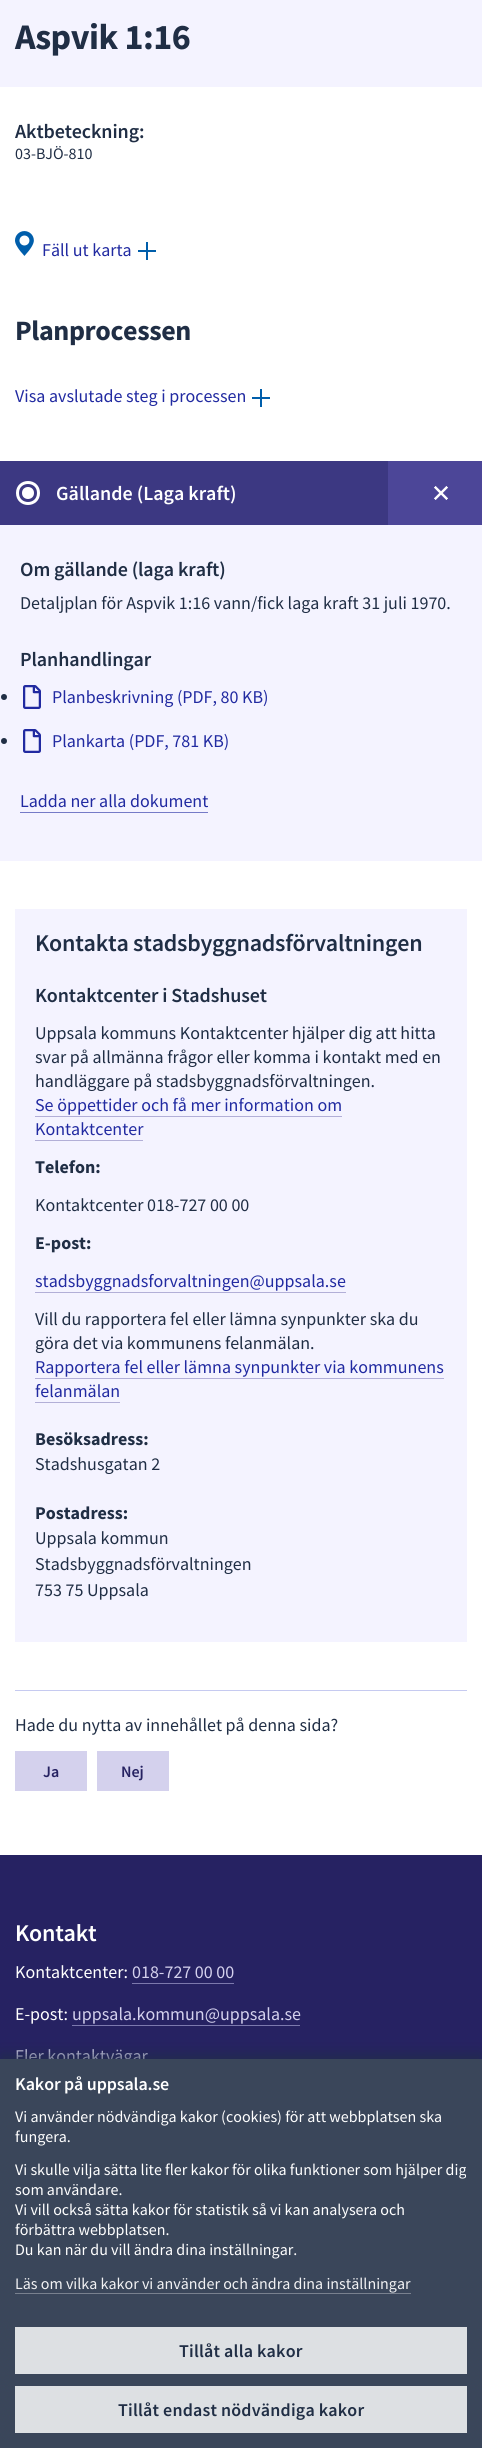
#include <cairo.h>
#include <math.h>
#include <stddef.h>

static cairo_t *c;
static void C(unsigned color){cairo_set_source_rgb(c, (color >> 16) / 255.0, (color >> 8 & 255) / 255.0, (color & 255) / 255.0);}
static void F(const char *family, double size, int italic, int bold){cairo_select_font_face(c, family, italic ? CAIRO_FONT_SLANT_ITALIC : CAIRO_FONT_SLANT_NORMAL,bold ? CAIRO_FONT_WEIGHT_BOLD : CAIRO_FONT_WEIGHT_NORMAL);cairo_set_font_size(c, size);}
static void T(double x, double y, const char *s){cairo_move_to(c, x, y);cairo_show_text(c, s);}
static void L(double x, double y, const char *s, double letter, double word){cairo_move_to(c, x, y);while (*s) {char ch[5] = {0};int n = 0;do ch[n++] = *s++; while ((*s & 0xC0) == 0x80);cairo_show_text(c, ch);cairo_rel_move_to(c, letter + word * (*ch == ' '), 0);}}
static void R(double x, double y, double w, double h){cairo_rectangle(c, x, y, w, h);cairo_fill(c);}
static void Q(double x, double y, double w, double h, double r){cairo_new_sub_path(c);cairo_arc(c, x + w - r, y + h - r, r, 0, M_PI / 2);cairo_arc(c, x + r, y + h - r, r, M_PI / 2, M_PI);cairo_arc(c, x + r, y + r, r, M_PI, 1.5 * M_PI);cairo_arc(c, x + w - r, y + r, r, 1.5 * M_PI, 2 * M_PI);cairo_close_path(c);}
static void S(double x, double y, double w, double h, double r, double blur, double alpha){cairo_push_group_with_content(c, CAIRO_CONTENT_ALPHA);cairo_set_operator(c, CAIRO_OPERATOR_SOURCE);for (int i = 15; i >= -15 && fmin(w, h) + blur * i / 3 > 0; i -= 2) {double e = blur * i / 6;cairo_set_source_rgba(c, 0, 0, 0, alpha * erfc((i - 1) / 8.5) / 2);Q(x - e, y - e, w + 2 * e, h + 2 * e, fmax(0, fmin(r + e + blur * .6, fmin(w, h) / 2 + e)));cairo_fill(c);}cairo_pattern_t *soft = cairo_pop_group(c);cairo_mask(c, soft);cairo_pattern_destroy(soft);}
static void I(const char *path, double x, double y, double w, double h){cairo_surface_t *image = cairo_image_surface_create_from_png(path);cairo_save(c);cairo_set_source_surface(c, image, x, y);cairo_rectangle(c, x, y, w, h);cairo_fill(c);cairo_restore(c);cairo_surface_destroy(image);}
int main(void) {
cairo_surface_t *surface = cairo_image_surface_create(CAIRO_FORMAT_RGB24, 482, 2448);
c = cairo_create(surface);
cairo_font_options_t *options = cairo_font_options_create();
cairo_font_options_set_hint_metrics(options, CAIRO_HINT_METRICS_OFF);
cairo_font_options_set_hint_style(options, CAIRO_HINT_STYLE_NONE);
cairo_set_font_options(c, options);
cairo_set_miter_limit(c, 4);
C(0xffffff);
cairo_paint(c);
C(0xf4f3ff);
R(0,0,482,87);
F("Source Sans Pro",36,0,1);
C(0x202e45);
L(15,49,"Aspvik 1:16",-.5,0);
F("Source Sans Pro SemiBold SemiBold",20,0,0);
L(15,138,"Aktbeteckning:",-.1,0);
F("Source Sans Pro",16,0,0);
T(15,159,"03-BJÖ-810");
I("1.png",15,231,19,25);
F("Source Sans Pro",18,0,0);
C(0x212aa1);
T(42,256,"Fäll ut karta");
I("2.png",138,242,18,18);
F("Source Sans Pro",28,0,1);
C(0x202e45);
L(15,340,"Planprocessen",-.4,0);
F("Source Sans Pro",18,0,0);
C(0x212aa1);
T(15,402,"Visa avslutade steg i processen");
I("2.png",252,389,18,18);
C(0x3c3882);
R(0,461,388,64);
cairo_new_path(c);
cairo_move_to(c,38.5,493);
cairo_curve_to(c,38.5,507,17.5,507,17.5,493);
cairo_curve_to(c,17.5,479,38.5,479,38.5,493);
cairo_close_path(c);
C(0xffffff);
cairo_set_line_width(c,3);
cairo_stroke(c);
cairo_new_path(c);
cairo_move_to(c,34,493);
cairo_curve_to(c,34,501,22,501,22,493);
cairo_curve_to(c,22,485,34,485,34,493);
cairo_close_path(c);
cairo_fill(c);
F("Source Sans Pro SemiBold SemiBold",20,0,0);
T(56,500,"Gällande (Laga kraft)");
C(0x4c4698);
R(388,461,94,64);
I("3.png",434,486,14,14);
C(0xf4f3ff);
R(0,525,482,336);
C(0x202e45);
L(20,576,"Om gällande (laga kraft)",-.1,0);
F("Source Sans Pro",18,0,0);
T(20,609,"Detaljplan för Aspvik 1:16 vann/fick laga kraft 31 juli 1970.");
F("Source Sans Pro SemiBold SemiBold",20,0,0);
L(20,666,"Planhandlingar",-.1,0);
cairo_new_path(c);
cairo_arc(c,4,697,3,0,2 * M_PI);
cairo_fill(c);
I("4.png",23,685,18,24);
F("Source Sans Pro",18,0,0);
C(0x212aa1);
T(52,703,"Planbeskrivning (PDF, 80 KB)");
C(0x202e45);
cairo_new_path(c);
cairo_arc(c,4,741,3,0,2 * M_PI);
cairo_fill(c);
I("4.png",23,729,18,24);
C(0x212aa1);
T(52,747,"Plankarta (PDF, 781 KB)");
T(20,807,"Ladda ner alla dokument");
C(0x757ac7);
R(20,812,188,1);
C(0xf4f3ff);
R(15,909,452,733);
F("Source Sans Pro SemiBold SemiBold",24,0,0);
C(0x202e45);
L(35,951,"Kontakta stadsbyggnadsförvaltningen",-.25,0);
F("Source Sans Pro SemiBold SemiBold",20,0,0);
L(35,1002,"Kontaktcenter i Stadshuset",-.1,0);
F("Source Sans Pro",18,0,0);
T(35,1039,"Uppsala kommuns Kontaktcenter hjälper dig att hitta");
T(35,1063,"svar på allmänna frågor eller komma i kontakt med en");
T(35,1087,"handläggare på stadsbyggnadsförvaltningen.");
C(0x212aa1);
T(35,1111,"Se öppettider och få mer information om");
C(0xb2afd7);
R(35,1116,307,1);
C(0x212aa1);
T(35,1135,"Kontaktcenter");
C(0xb2afd7);
R(35,1140,108,1);
F("Source Sans Pro",18,0,1);
C(0x202e45);
T(35,1173,"Telefon:");
F("Source Sans Pro",18,0,0);
T(35,1211,"Kontaktcenter 018-727 00 00");
F("Source Sans Pro",18,0,1);
T(35,1249,"E-post:");
F("Source Sans Pro",18,0,0);
C(0x212aa1);
T(35,1287,"stadsbyggnadsforvaltningen@uppsala.se");
C(0xb2afd7);
R(35,1292,311,1);
C(0x202e45);
T(35,1325,"Vill du rapportera fel eller lämna synpunkter ska du");
T(35,1349,"göra det via kommunens felanmälan.");
C(0x212aa1);
T(35,1373,"Rapportera fel eller lämna synpunkter via kommunens");
C(0xb2afd7);
R(35,1378,409,1);
C(0x212aa1);
T(35,1397,"felanmälan");
C(0xb2afd7);
R(35,1402,85,1);
F("Source Sans Pro",18,0,1);
C(0x202e45);
T(35,1445,"Besöksadress:");
F("Source Sans Pro",18,0,0);
T(35,1470,"Stadshusgatan 2");
F("Source Sans Pro",18,0,1);
T(35,1519,"Postadress:");
F("Source Sans Pro",18,0,0);
T(35,1544,"Uppsala kommun");
T(35,1570,"Stadsbyggnadsförvaltningen");
T(35,1596,"753 75 Uppsala");
C(0xc6caf0);
R(15,1690,452,1);
C(0x202e45);
T(15,1731,"Hade du nytta av innehållet på denna sida?");
C(0xd4d1ed);
R(15,1751,72,40);
F("Source Sans Pro SemiBold SemiBold",16,0,0);
C(0x262262);
T(43,1777,"Ja");
C(0xd4d1ed);
R(97,1751,72,40);
C(0x262262);
T(121,1777,"Nej");
R(0,1855,482,204);
F("Source Sans Pro SemiBold SemiBold",24,0,0);
C(0xffffff);
L(15,1941,"Kontakt",-.25,0);
F("Source Sans Pro",18,0,0);
T(15,1978,"Kontaktcenter:");
C(0xd4d1ed);
T(132,1978,"018-727 00 00");
C(0x7c79ad);
R(132,1983,102,1);
C(0xffffff);
T(15,2020,"E-post:");
C(0xd4d1ed);
T(72,2020,"uppsala.kommun@uppsala.se");
C(0x7c79ad);
R(72,2025,228,1);
C(0xd4d1ed);
T(15,2062,"Fler kontaktvägar");
C(0x202e45);
S(0,2053,482,389,0,6,.61);
C(0x3a465a);
R(0,2059,482,389);
F("Source Sans Pro SemiBold SemiBold",18,0,0);
C(0xffffff);
L(15,2090,"Kakor på uppsala.se",-.1,0);
F("Source Sans Pro",16,0,0);
T(15,2122,"Vi använder nödvändiga kakor (cookies) för att webbplatsen ska");
T(15,2142,"fungera.");
T(15,2175,"Vi skulle vilja sätta lite fler kakor för olika funktioner som hjälper dig");
T(15,2195,"som användare.");
T(15,2215,"Vi vill också sätta kakor för statistik så vi kan analysera och");
T(15,2235,"förbättra webbplatsen.");
T(15,2255,"Du kan när du vill ändra dina inställningar.");
C(0xf2f2f4);
T(15,2289,"Läs om vilka kakor vi använder och ändra dina inställningar");
C(0x79818f);
R(15,2293,396,1);
C(0xdde0e3);
R(15,2327,452,47);
F("Source Sans Pro SemiBold SemiBold",18,0,0);
C(0x202e45);
L(179,2357,"Tillåt alla kakor",.2,0);
C(0xdde0e3);
R(15,2386,452,47);
C(0x202e45);
L(118,2416,"Tillåt endast nödvändiga kakor",.2,0);
cairo_surface_write_to_png(surface, "o.png");
cairo_font_options_destroy(options);
cairo_destroy(c);
cairo_surface_destroy(surface);
return 0;
}
